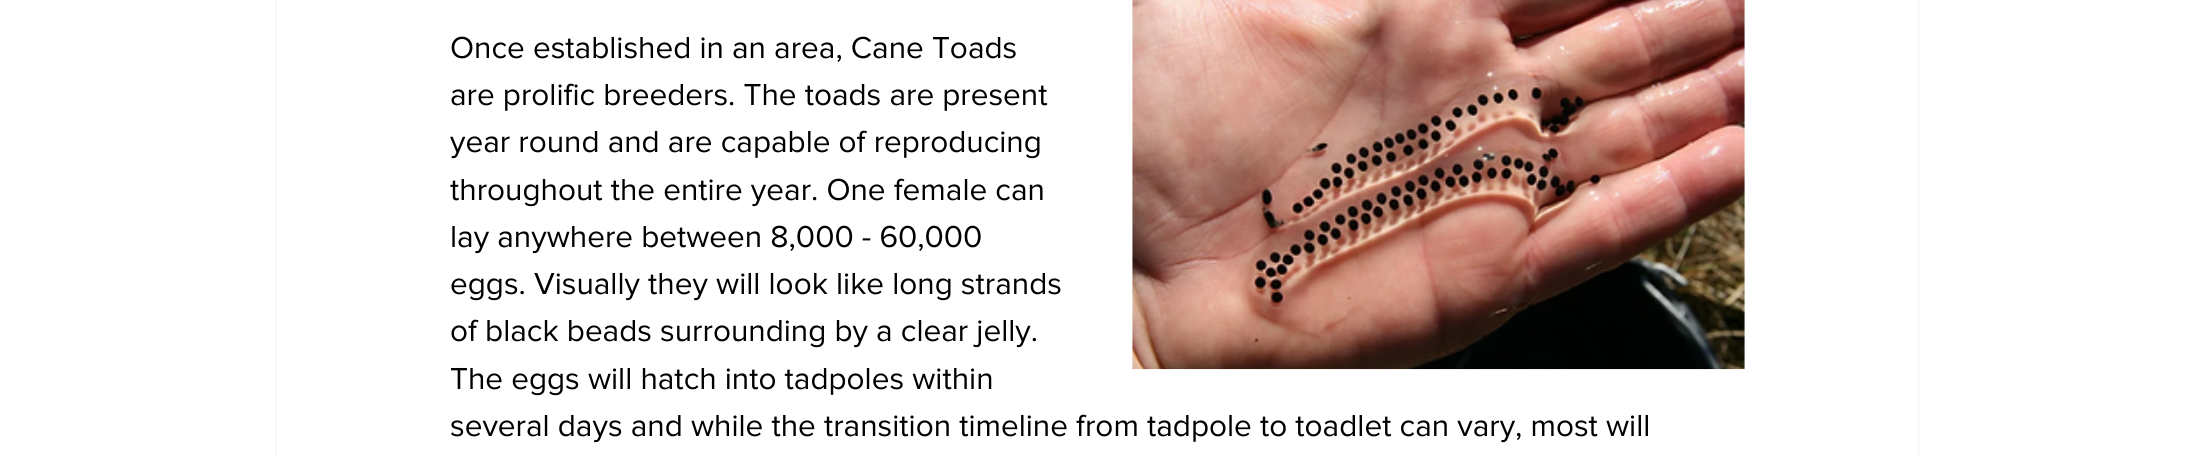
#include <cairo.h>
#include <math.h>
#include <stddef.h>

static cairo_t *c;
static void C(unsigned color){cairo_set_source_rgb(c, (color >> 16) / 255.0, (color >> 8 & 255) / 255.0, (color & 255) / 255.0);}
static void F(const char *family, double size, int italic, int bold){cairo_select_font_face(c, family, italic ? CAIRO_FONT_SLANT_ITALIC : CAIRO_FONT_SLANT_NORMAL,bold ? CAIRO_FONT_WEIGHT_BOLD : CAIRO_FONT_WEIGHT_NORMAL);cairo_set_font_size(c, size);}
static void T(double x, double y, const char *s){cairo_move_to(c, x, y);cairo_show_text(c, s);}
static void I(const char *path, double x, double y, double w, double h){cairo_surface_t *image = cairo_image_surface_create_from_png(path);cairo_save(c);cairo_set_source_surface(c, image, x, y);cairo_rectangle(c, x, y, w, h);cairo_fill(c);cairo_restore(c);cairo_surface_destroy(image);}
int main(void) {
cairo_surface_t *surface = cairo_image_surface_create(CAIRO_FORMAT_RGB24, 2193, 458);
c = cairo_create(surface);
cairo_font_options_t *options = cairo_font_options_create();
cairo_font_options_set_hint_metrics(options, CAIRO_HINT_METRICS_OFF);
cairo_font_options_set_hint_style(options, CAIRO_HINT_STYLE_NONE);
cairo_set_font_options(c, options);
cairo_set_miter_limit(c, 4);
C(0xffffff);
cairo_paint(c);
cairo_rectangle(c,276,-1,1643,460);
C(0xf9f9f9);
cairo_stroke(c);
I("1.png",1132,0,613,370);
F("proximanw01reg",31.5,0,0);
C(0x000000);
T(450,58,"Once established in an area, Cane Toads");
T(450,105,"are prolific breeders. The toads are present");
T(450,152,"year round and are capable of reproducing");
T(450,200,"throughout the entire year. One female can");
T(450,247,"lay anywhere between 8,000 - 60,000");
T(450,294,"eggs. Visually they will look like long strands");
T(450,341,"of black beads surrounding by a clear jelly.");
T(450,389,"The eggs will hatch into tadpoles within");
T(450,436,"several days and while the transition timeline from tadpole to toadlet can vary, most will");
cairo_surface_write_to_png(surface, "o.png");
cairo_font_options_destroy(options);
cairo_destroy(c);
cairo_surface_destroy(surface);
return 0;
}
